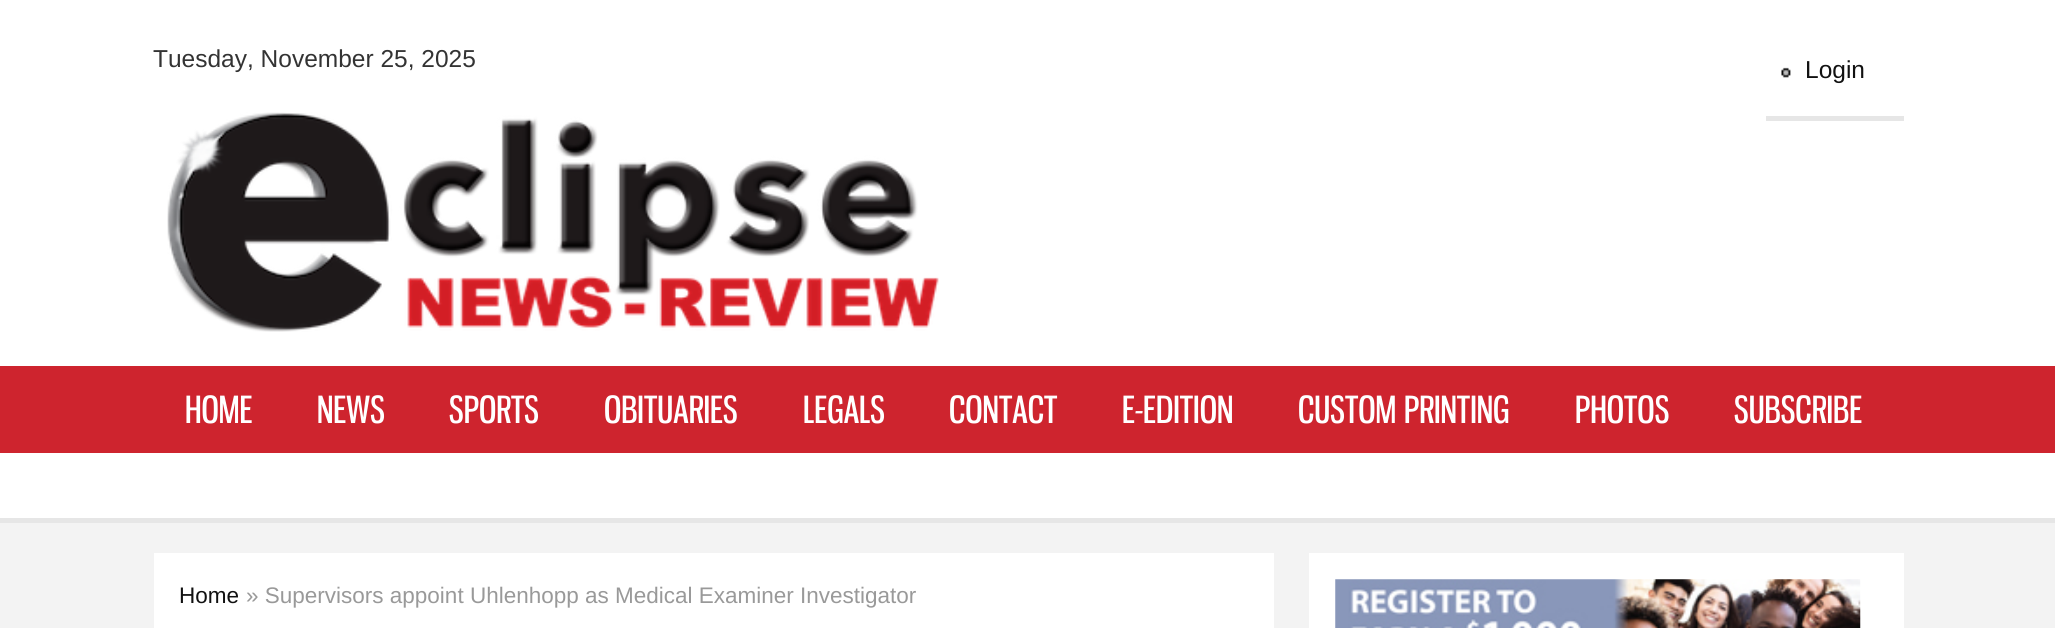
#include <cairo.h>
#include <math.h>
#include <stddef.h>

static cairo_t *c;
static void C(unsigned color){cairo_set_source_rgb(c, (color >> 16) / 255.0, (color >> 8 & 255) / 255.0, (color & 255) / 255.0);}
static void F(const char *family, double size, int italic, int bold){cairo_select_font_face(c, family, italic ? CAIRO_FONT_SLANT_ITALIC : CAIRO_FONT_SLANT_NORMAL,bold ? CAIRO_FONT_WEIGHT_BOLD : CAIRO_FONT_WEIGHT_NORMAL);cairo_set_font_size(c, size);}
static void T(double x, double y, const char *s){cairo_move_to(c, x, y);cairo_show_text(c, s);}
static void R(double x, double y, double w, double h){cairo_rectangle(c, x, y, w, h);cairo_fill(c);}
static void I(const char *path, double x, double y, double w, double h){cairo_surface_t *image = cairo_image_surface_create_from_png(path);cairo_save(c);cairo_set_source_surface(c, image, x, y);cairo_rectangle(c, x, y, w, h);cairo_fill(c);cairo_restore(c);cairo_surface_destroy(image);}
int main(void) {
cairo_surface_t *surface = cairo_image_surface_create(CAIRO_FORMAT_RGB24, 2055, 628);
c = cairo_create(surface);
cairo_font_options_t *options = cairo_font_options_create();
cairo_font_options_set_hint_metrics(options, CAIRO_HINT_METRICS_OFF);
cairo_font_options_set_hint_style(options, CAIRO_HINT_STYLE_NONE);
cairo_set_font_options(c, options);
cairo_set_miter_limit(c, 4);
C(0xf3f3f3);
cairo_paint(c);
C(0xffffff);
R(0,0,2055,366);
F("Liberation Sans",24.5,0,0);
C(0x333333);
T(153,67,"Tuesday, November 25, 2025");
I("1.png",167,112,772,220);
C(0xe6e6e6);
R(1766,116,138,5);
I("2.png",1781,67,10,11);
C(0x111111);
T(1805,78,"Login");
C(0xce242e);
R(0,366,2055,87);
C(0xe6e6e6);
R(0,518,2055,5);
F("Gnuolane",36.75,0,0);
C(0xffffff);
T(185,423,"HOME");
T(317,423,"NEWS");
T(449,423,"SPORTS");
T(604,423,"OBITUARIES");
T(803,423,"LEGALS");
T(949,423,"CONTACT");
T(1122,423,"E-EDITION");
T(1298,423,"CUSTOM PRINTING");
T(1575,423,"PHOTOS");
T(1734,423,"SUBSCRIBE");
R(0,453,2055,65);
R(154,553,1120,75);
F("Liberation Sans",22.5,0,0);
C(0x111111);
T(179,603,"Home");
C(0x999999);
T(246,603,"» Supervisors appoint Uhlenhopp as Medical Examiner Investigator");
C(0xffffff);
R(1309,553,595,75);
I("3.png",1335,579,526,49);
cairo_surface_write_to_png(surface, "o.png");
cairo_font_options_destroy(options);
cairo_destroy(c);
cairo_surface_destroy(surface);
return 0;
}
